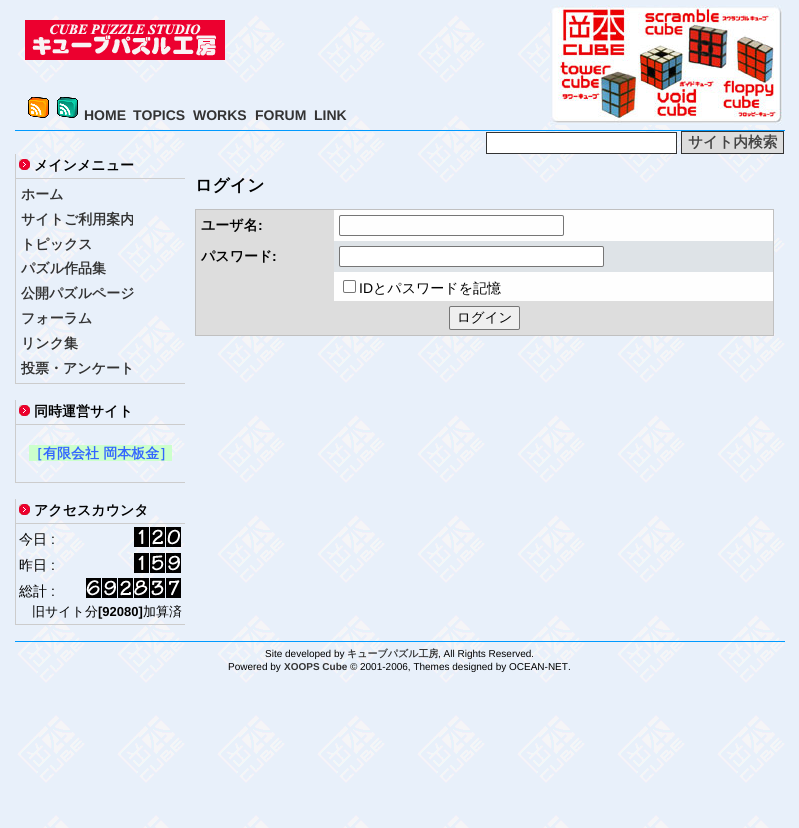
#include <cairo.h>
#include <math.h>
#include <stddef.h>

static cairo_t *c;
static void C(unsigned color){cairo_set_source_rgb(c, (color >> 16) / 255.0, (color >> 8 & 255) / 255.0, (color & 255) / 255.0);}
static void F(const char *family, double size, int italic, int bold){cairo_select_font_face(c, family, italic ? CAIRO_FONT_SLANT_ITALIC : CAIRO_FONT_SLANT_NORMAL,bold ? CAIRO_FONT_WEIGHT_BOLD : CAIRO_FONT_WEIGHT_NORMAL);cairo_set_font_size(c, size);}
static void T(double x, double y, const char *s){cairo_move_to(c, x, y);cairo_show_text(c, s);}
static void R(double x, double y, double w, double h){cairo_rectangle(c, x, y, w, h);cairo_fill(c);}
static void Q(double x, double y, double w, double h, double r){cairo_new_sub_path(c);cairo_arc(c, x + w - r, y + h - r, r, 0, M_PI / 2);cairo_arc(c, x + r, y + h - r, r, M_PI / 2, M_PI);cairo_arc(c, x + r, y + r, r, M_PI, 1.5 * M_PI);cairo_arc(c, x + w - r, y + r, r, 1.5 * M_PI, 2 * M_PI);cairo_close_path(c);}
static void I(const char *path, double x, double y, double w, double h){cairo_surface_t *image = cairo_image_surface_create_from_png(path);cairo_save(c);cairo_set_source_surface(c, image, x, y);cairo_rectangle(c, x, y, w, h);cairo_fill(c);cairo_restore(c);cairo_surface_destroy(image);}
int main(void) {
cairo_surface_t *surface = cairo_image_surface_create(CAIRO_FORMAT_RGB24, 799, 828);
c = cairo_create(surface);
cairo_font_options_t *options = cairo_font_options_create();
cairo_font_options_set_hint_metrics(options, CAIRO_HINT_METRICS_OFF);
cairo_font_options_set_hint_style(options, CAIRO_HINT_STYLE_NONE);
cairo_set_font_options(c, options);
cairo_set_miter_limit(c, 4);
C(0xffffff);
cairo_paint(c);
I("1.png",0,0,799,828);
I("2.png",25,20,200,40);
I("3.png",550,5,234,120);
C(0x009aff);
R(15,130,770,1);
I("4.png",28,97,21,21);
I("5.png",57,97,21,21);
F("Liberation Sans",14,0,1);
C(0x333333);
T(84,120,"HOME");
T(133,120,"TOPICS");
T(193,120,"WORKS");
T(255,120,"FORUM");
T(314,120,"LINK");
C(0xffffff);
cairo_rectangle(c,486.5,132.5,190,21);
cairo_fill_preserve(c);
C(0x333333);
cairo_set_line_width(c,1);
cairo_stroke(c);
C(0xdddddd);
cairo_rectangle(c,681.5,131.5,102,22);
cairo_fill_preserve(c);
C(0x333333);
cairo_stroke(c);
F("WenQuanYi Zen Hei",14.75,0,1);
C(0x444444);
T(688,147,"サイト内検索");
C(0xcccccc);
R(15,178,170,1);
R(15,154,1,25);
I("6.png",19,159,11,11);
F("WenQuanYi Zen Hei",14,0,1);
C(0x000000);
T(34,170,"メインメニュー");
C(0xcccccc);
R(15,383,170,1);
R(15,179,1,205);
C(0x333333);
T(21,199,"ホーム");
T(21,224,"サイトご利用案内");
T(21,249,"トピックス");
T(21,273,"パズル作品集");
T(21,298,"公開パズルページ");
T(21,323,"フォーラム");
T(21,348,"リンク集");
T(21,373,"投票・アンケート");
C(0xcccccc);
R(15,424,170,1);
R(15,400,1,25);
I("6.png",19,405,11,11);
C(0x000000);
T(34,416,"同時運営サイト");
C(0xcccccc);
R(15,482,170,1);
R(15,425,1,58);
C(0xccffcc);
R(29,445,143,16);
C(0x3366ff);
T(29,458,"［有限会社 岡本板金］");
C(0xcccccc);
R(15,523,170,1);
R(15,499,1,25);
I("6.png",19,504,11,11);
C(0x000000);
T(34,515,"アクセスカウンタ");
C(0xcccccc);
R(15,624,170,1);
R(15,524,1,101);
F("WenQuanYi Zen Hei Medium",14,0,0);
C(0x000000);
T(19,544,"今日");
F("Liberation Sans",14,0,0);
T(51,544,":");
I("7.png",134,527,15,20);
I("8.png",150,527,15,20);
I("9.png",166,527,15,20);
F("WenQuanYi Zen Hei Medium",14,0,0);
T(19,570,"昨日");
F("Liberation Sans",14,0,0);
T(51,570,":");
I("7.png",134,553,15,20);
I("10.png",150,553,15,20);
I("11.png",166,553,15,20);
F("WenQuanYi Zen Hei Medium",14,0,0);
T(19,596,"総計");
F("Liberation Sans",14,0,0);
T(51,596,":");
I("12.png",86,578,15,20);
I("11.png",102,578,15,20);
I("8.png",118,578,15,20);
I("13.png",134,578,15,20);
I("14.png",150,578,15,20);
I("15.png",166,578,15,20);
F("WenQuanYi Zen Hei Medium",13,0,0);
T(32,616,"旧サイト分");
F("Liberation Sans",13,0,1);
T(98,616,"[92080]");
F("WenQuanYi Zen Hei Medium",13,0,0);
T(143,616,"加算済");
F("WenQuanYi Zen Hei",17,0,1);
T(195,191,"ログイン");
C(0xc0c0c0);
R(195,209,579,1);
R(773,209,1,127);
R(195,335,579,1);
R(195,209,1,127);
C(0xdddddd);
R(196,210,138,91);
F("WenQuanYi Zen Hei",14,0,1);
C(0x000000);
T(201,230,"ユーザ名");
F("Liberation Sans",14,0,1);
T(258,230,":");
C(0xfefefe);
R(334,210,439,31);
Q(339.5,215.5,224,20,1.5);
C(0x767676);
cairo_stroke(c);
F("WenQuanYi Zen Hei",14,0,1);
C(0x000000);
T(201,261,"パスワード");
F("Liberation Sans",14,0,1);
T(272,261,":");
C(0xdee3e7);
R(334,241,439,31);
C(0xffffff);
Q(339.5,246.5,264,20,1.5);
cairo_fill_preserve(c);
C(0x767676);
cairo_stroke(c);
C(0xfefefe);
R(334,272,439,29);
Q(343.5,280.5,12,12,1.5);
C(0x767676);
cairo_stroke(c);
F("Liberation Sans",14,0,0);
C(0x000000);
T(359,293,"ID");
F("WenQuanYi Zen Hei Medium",14,0,0);
T(373,293,"とパスワードを記憶");
C(0xdddddd);
R(196,301,577,34);
C(0xefefef);
Q(449.5,306.5,70,23,1.5);
cairo_fill_preserve(c);
C(0x767676);
cairo_stroke(c);
F("WenQuanYi Zen Hei Medium",13.5,0,0);
C(0x000000);
T(457,322,"ログイン");
C(0x009aff);
R(15,641,770,1);
F("Liberation Sans",10,0,0);
C(0x000000);
T(265,657,"Site developed by");
F("WenQuanYi Zen Hei",10,0,1);
C(0x333333);
T(347,657,"キューブパズル工房");
F("Liberation Sans",10,0,0);
C(0x000000);
T(438,657,", All Rights Reserved.");
T(228,670,"Powered by");
F("Liberation Sans",10,0,1);
C(0x333333);
T(284,670,"XOOPS Cube ©");
F("Liberation Sans",10,0,0);
C(0x000000);
T(360,670,"2001-2006, Themes designed by OCEAN-NET.");
cairo_surface_write_to_png(surface, "o.png");
cairo_font_options_destroy(options);
cairo_destroy(c);
cairo_surface_destroy(surface);
return 0;
}
